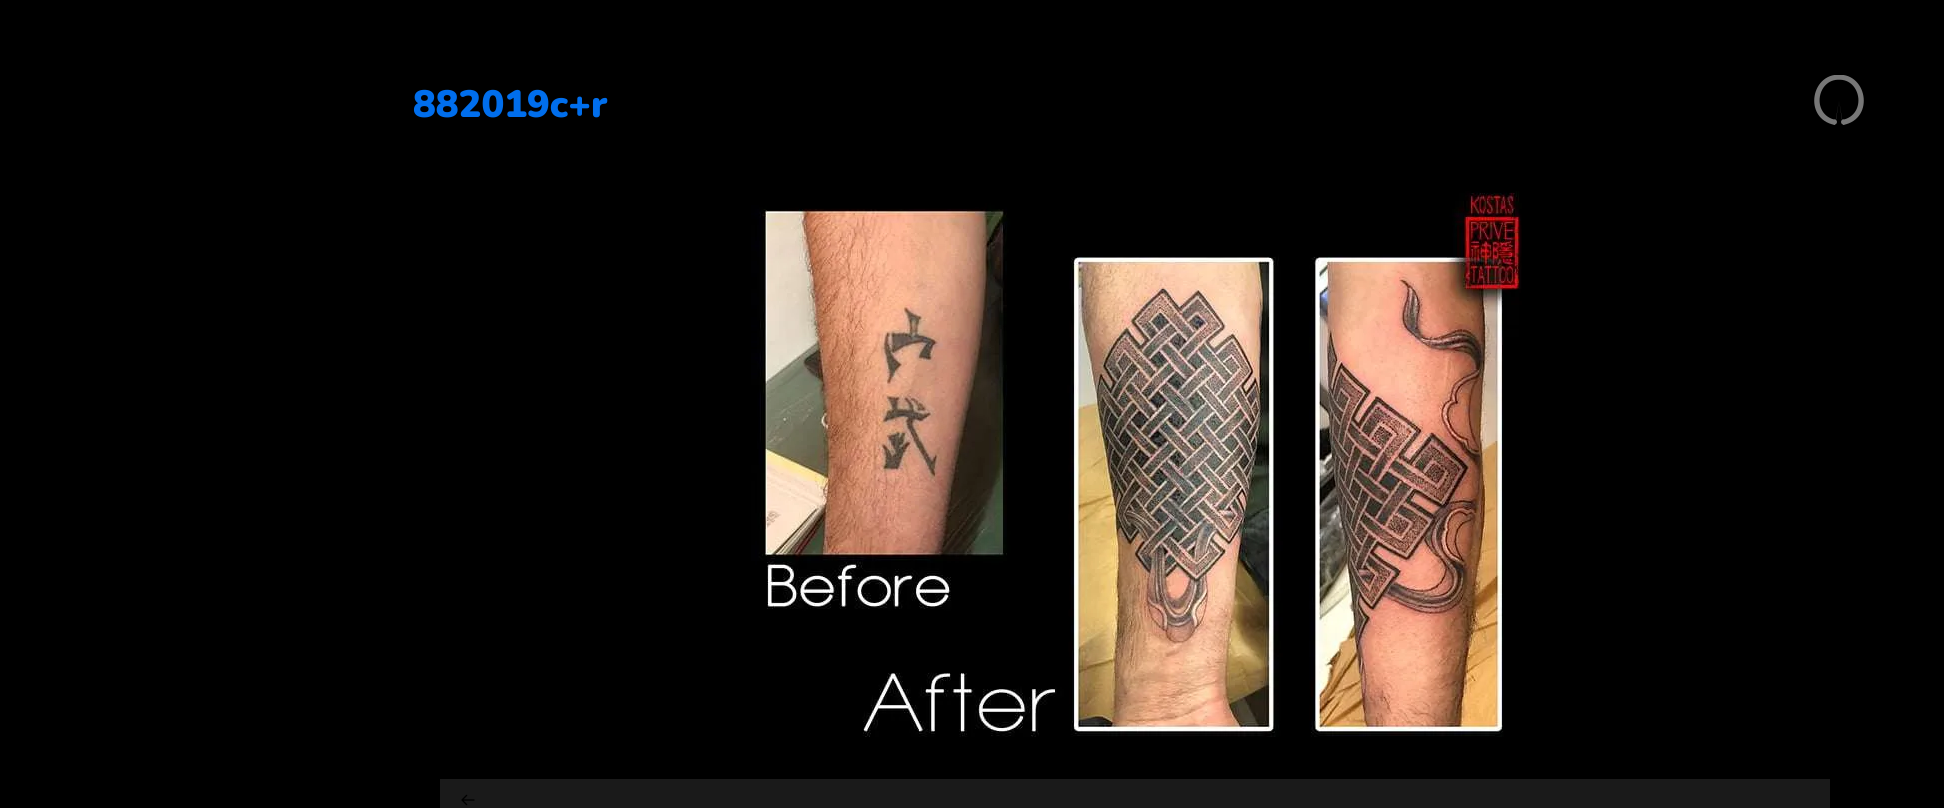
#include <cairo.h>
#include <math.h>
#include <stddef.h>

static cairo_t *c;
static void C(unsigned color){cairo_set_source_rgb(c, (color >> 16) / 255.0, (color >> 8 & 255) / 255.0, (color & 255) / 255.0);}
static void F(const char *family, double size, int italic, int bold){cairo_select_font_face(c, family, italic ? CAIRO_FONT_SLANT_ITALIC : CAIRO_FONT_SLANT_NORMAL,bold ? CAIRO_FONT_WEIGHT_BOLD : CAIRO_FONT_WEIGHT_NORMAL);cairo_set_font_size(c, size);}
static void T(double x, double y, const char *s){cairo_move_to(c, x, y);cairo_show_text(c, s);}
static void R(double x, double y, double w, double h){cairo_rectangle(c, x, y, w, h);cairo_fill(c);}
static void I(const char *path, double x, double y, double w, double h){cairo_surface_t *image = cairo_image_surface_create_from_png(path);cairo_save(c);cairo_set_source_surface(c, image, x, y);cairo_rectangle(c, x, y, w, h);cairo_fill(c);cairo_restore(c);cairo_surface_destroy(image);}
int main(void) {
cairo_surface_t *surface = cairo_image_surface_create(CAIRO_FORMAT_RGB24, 1944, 808);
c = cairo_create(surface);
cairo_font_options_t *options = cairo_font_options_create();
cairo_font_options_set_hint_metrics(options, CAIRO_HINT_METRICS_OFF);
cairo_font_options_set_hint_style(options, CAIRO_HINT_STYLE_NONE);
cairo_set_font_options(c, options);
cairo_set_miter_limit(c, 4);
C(0x000000);
cairo_paint(c);
F("Nunito Black",38,0,0);
C(0x006eed);
T(413,117,"882019c+r");
I("1.png",751,191,771,546);
C(0x1a1a1a);
R(440,779,1390,29);
I("2.png",461,794,14,12);
cairo_save(c);
cairo_rectangle(c,1814,75,25,50);
cairo_clip(c);
C(0x777777);
cairo_set_fill_rule(c,CAIRO_FILL_RULE_EVEN_ODD);
cairo_new_path(c);
cairo_move_to(c,1843,75);
cairo_line_to(c,1835,125);
cairo_curve_to(c,1802,119,1811,70,1843,75);
cairo_close_path(c);
cairo_move_to(c,1842,80);
cairo_line_to(c,1836,120);
cairo_curve_to(c,1810,115,1817,76,1842,80);
cairo_close_path(c);
cairo_fill(c);
cairo_restore(c);
C(0x777777);
cairo_new_path(c);
cairo_move_to(c,1835,119.5);
cairo_curve_to(c,1838,120,1837.5,125,1834,124.5);
cairo_curve_to(c,1831,124,1832,119,1835,119.5);
cairo_close_path(c);
cairo_fill(c);
cairo_save(c);
cairo_rectangle(c,1839,75,25,50);
cairo_clip(c);
cairo_set_fill_rule(c,CAIRO_FILL_RULE_EVEN_ODD);
cairo_new_path(c);
cairo_move_to(c,1835,75);
cairo_curve_to(c,1867,70,1876,119,1843,125);
cairo_close_path(c);
cairo_move_to(c,1836,80);
cairo_curve_to(c,1861,76,1868,115,1842,120);
cairo_close_path(c);
cairo_fill(c);
cairo_restore(c);
cairo_new_path(c);
cairo_move_to(c,1843,119.5);
cairo_curve_to(c,1846,119,1847,124,1844,124.5);
cairo_curve_to(c,1840.5,125,1840,120,1843,119.5);
cairo_close_path(c);
cairo_fill(c);
cairo_surface_write_to_png(surface, "o.png");
cairo_font_options_destroy(options);
cairo_destroy(c);
cairo_surface_destroy(surface);
return 0;
}
